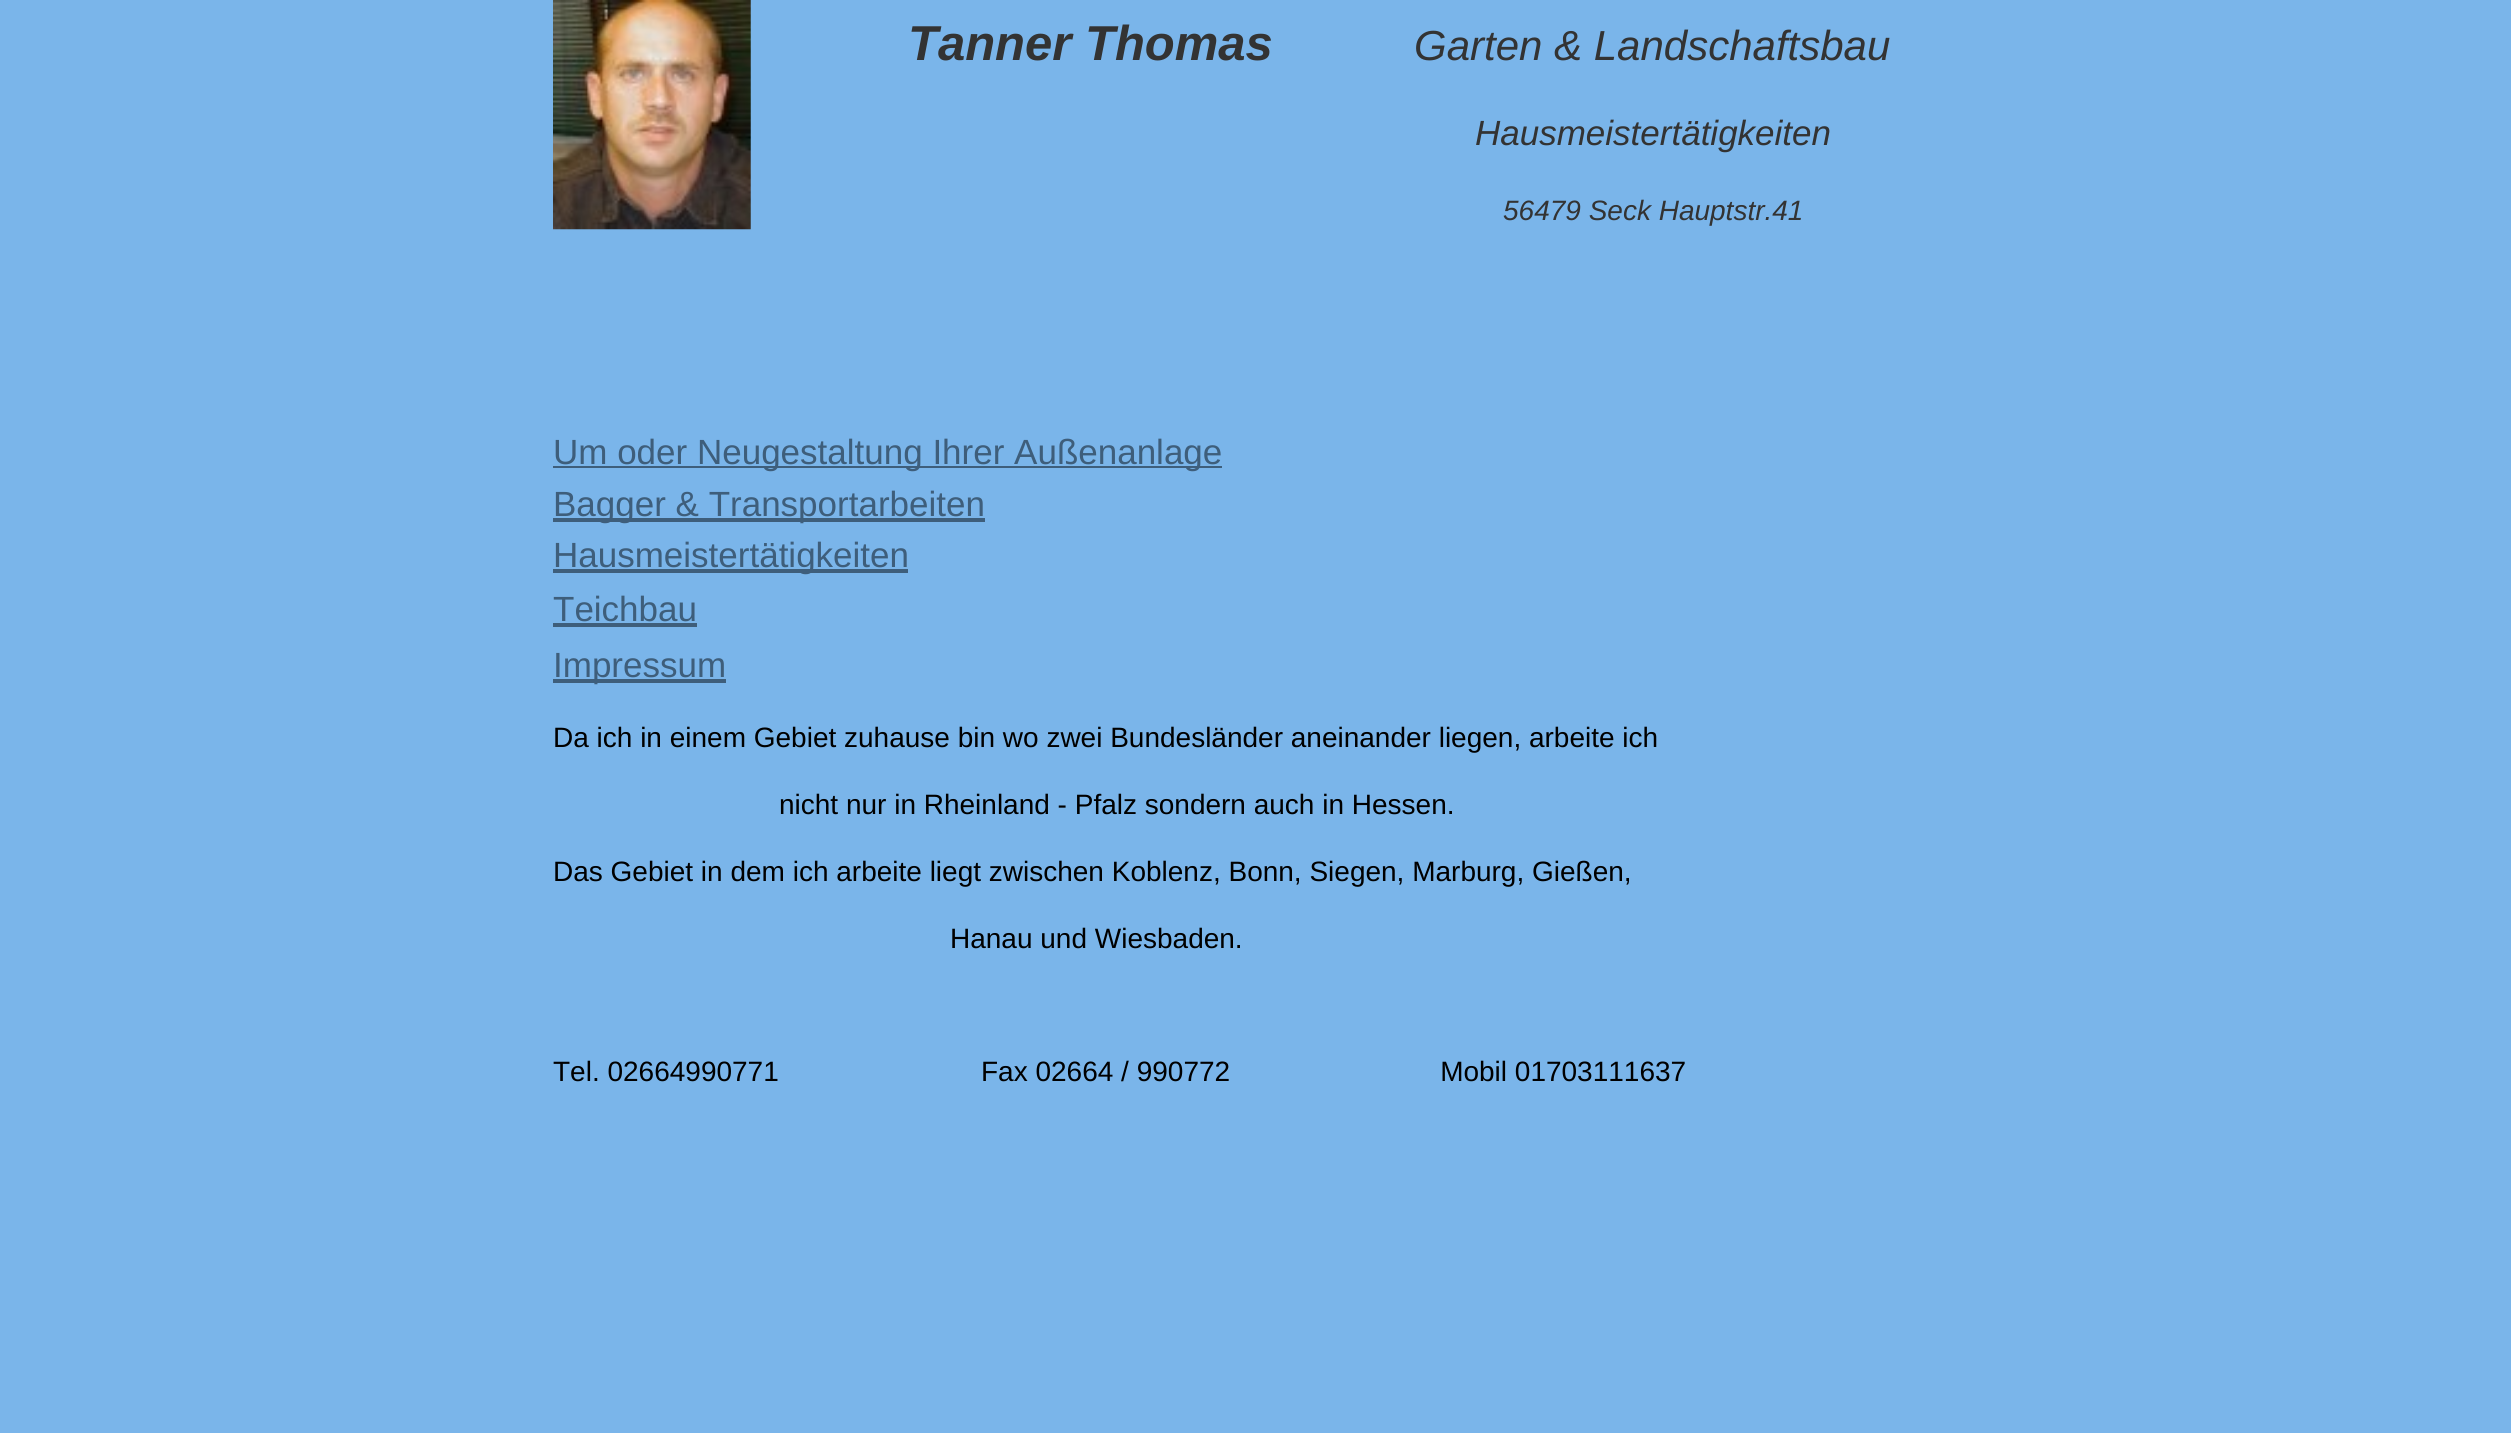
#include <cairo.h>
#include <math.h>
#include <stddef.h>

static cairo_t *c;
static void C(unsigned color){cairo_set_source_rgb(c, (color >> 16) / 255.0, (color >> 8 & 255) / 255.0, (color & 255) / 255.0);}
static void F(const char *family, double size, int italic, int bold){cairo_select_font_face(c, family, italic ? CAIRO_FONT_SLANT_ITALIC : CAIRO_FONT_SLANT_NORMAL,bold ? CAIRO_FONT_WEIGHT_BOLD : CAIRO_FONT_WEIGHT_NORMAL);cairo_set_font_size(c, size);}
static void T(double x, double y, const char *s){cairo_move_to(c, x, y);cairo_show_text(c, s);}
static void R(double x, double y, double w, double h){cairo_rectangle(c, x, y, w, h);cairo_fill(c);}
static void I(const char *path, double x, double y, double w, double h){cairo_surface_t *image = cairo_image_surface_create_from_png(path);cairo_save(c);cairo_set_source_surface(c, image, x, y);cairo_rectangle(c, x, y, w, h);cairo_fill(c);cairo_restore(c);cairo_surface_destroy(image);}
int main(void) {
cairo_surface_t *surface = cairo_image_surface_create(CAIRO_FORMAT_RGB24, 2511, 1433);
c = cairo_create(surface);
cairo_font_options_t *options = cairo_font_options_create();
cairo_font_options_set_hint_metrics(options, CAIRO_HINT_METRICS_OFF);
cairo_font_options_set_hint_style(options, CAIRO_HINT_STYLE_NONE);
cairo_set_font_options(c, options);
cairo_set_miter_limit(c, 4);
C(0x7ab5ea);
cairo_paint(c);
I("1.png",553,0,198,230);
F("Liberation Sans",49,1,1);
C(0x333333);
T(908,60,"Tanner Thomas");
F("Liberation Sans",42,1,0);
T(1414,60,"Garten & Landschaftsbau");
F("Liberation Sans",35,1,0);
T(1475,145,"Hausmeistertätigkeiten");
F("Liberation Sans",28,1,0);
T(1503,220,"56479 Seck Hauptstr.41");
C(0x3e5e7b);
R(553,466,669,2);
F("Liberation Sans",35,0,0);
T(553,464,"Um oder Neugestaltung Ihrer Außenanlage");
R(553,518,432,4);
T(553,516,"Bagger & Transportarbeiten");
R(553,569,355,4);
T(553,567,"Hausmeistertätigkeiten");
T(553,621,"Teichbau");
R(553,623,144,4);
R(553,679,173,4);
T(553,677,"Impressum");
F("Liberation Sans",28,0,0);
C(0x000000);
T(553,747,"Da ich in einem Gebiet zuhause bin wo zwei Bundesländer aneinander liegen, arbeite ich");
T(779,814,"nicht nur in Rheinland - Pfalz sondern auch in Hessen.");
T(553,881,"Das Gebiet in dem ich arbeite liegt zwischen Koblenz, Bonn, Siegen, Marburg, Gießen,");
T(950,948,"Hanau und Wiesbaden.");
T(553,1081,"Tel. 02664990771                          Fax 02664 / 990772                           Mobil 01703111637");
cairo_surface_write_to_png(surface, "o.png");
cairo_font_options_destroy(options);
cairo_destroy(c);
cairo_surface_destroy(surface);
return 0;
}
